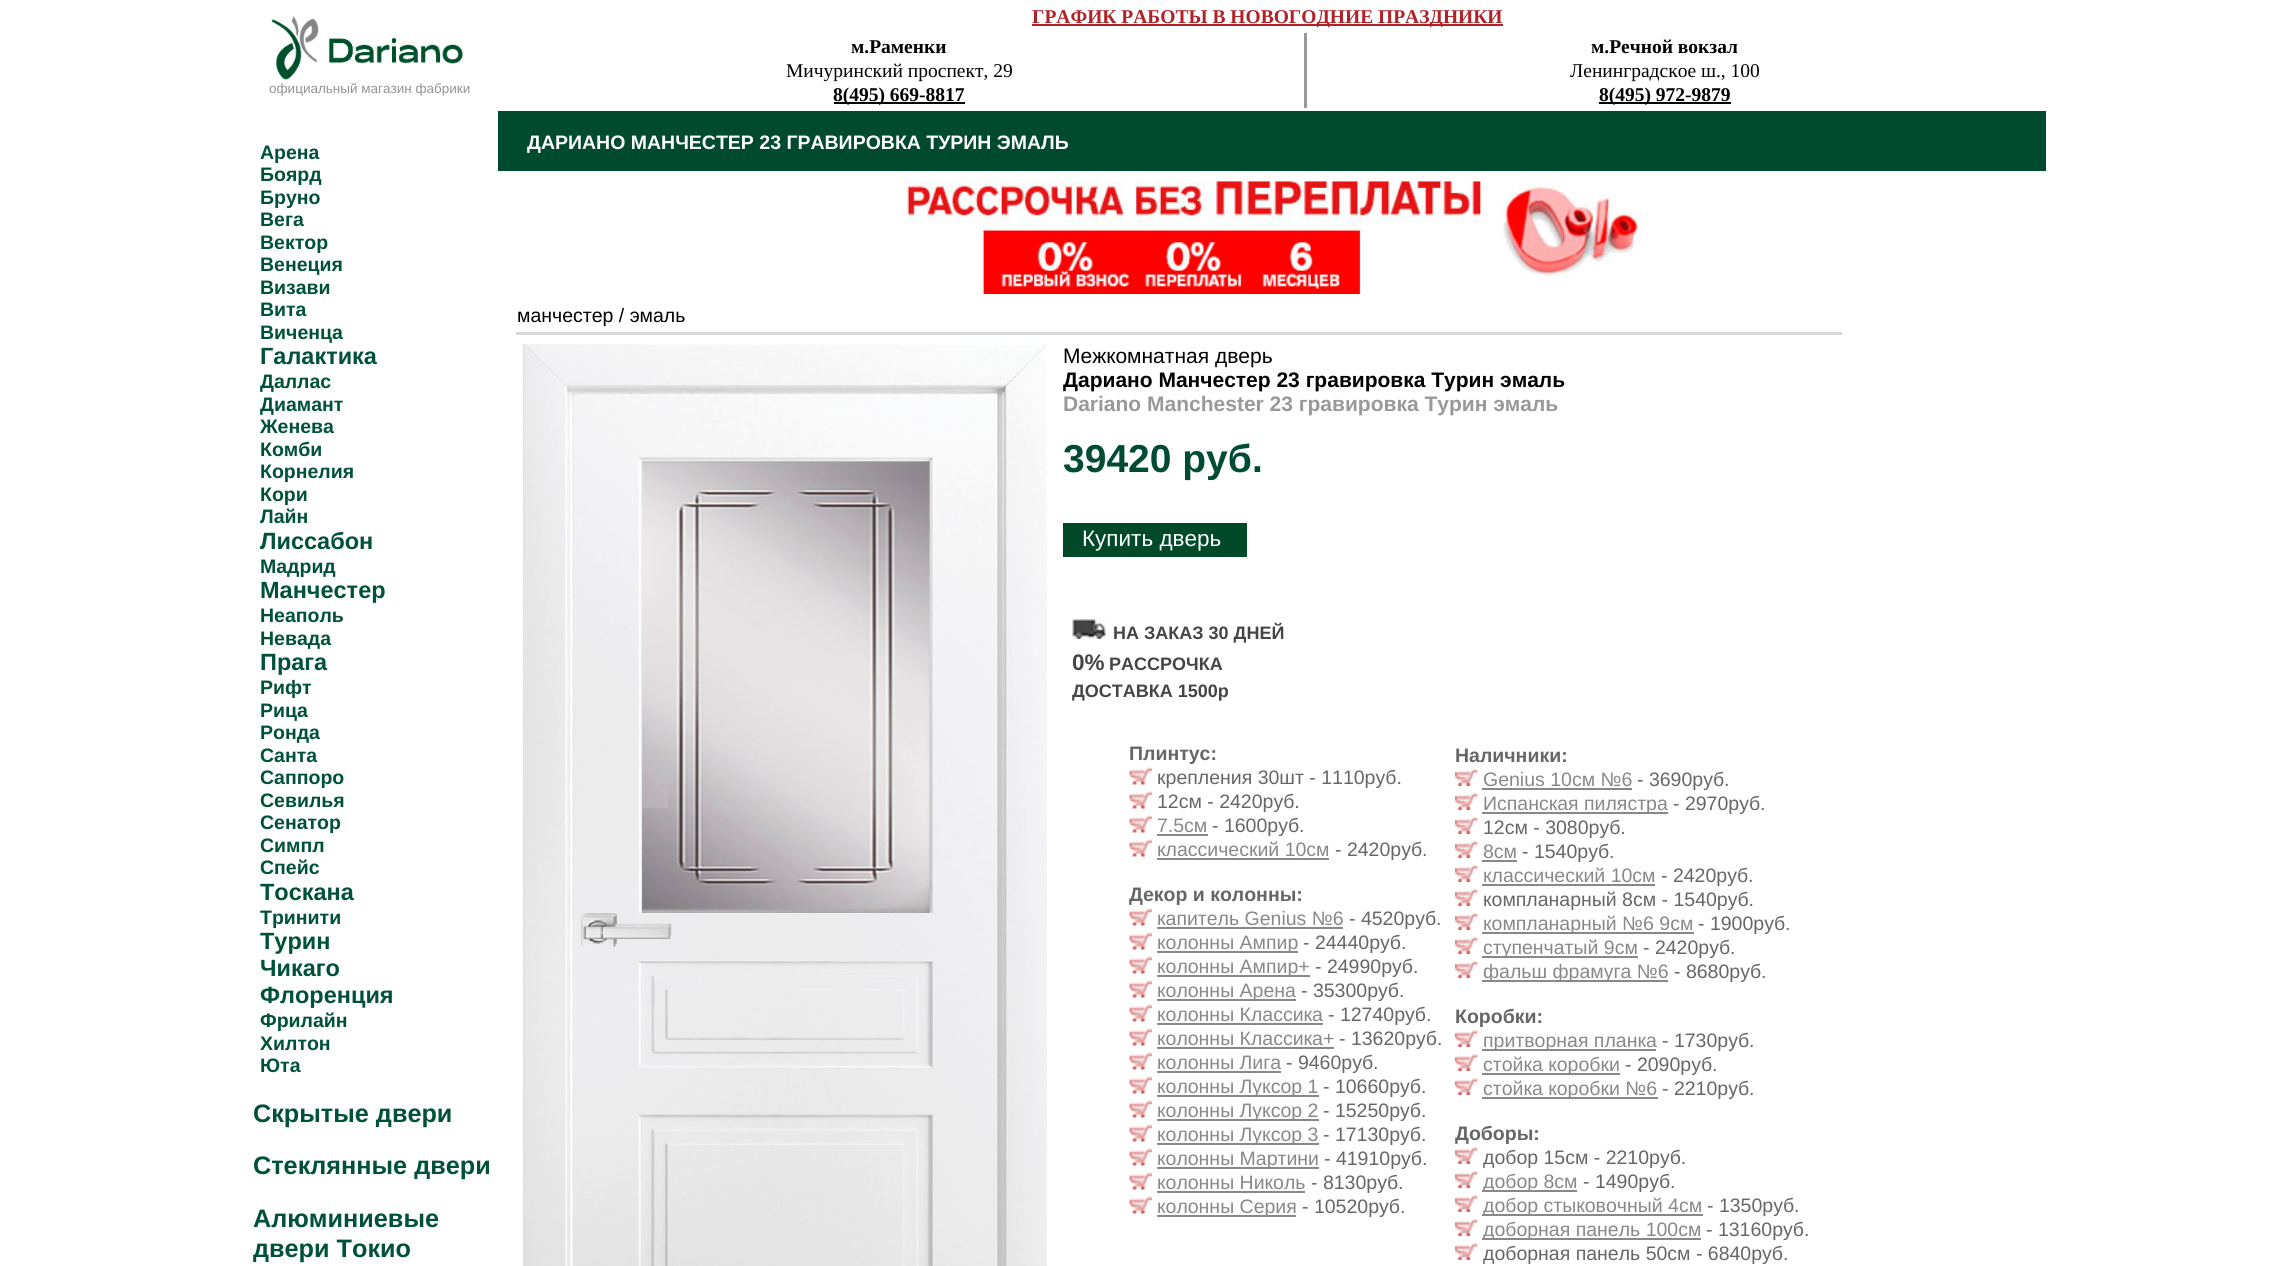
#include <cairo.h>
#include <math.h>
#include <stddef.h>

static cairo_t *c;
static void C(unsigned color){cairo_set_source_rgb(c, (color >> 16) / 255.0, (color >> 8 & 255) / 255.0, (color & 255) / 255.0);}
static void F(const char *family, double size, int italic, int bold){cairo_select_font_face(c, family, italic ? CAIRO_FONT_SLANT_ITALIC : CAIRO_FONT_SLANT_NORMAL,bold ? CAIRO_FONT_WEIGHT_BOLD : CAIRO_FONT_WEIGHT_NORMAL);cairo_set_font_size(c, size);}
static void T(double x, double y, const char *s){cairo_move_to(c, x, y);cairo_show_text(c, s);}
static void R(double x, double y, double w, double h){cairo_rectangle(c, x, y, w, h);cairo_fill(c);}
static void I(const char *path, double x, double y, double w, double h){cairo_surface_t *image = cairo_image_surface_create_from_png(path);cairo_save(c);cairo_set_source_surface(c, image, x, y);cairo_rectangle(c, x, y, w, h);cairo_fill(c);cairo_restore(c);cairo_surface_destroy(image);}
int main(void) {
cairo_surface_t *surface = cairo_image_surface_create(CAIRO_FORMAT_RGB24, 2290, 1266);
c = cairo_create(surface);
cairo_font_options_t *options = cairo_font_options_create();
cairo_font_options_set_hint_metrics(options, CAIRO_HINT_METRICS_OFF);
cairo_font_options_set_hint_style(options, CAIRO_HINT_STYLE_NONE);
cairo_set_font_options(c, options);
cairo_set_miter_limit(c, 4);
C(0xffffff);
cairo_paint(c);
I("1.png",271,16,192,64);
F("Liberation Sans",13.5,0,0);
C(0x939393);
T(269,93,"официальный магазин фабрики");
F("Liberation Sans",19.5,0,1);
C(0x00513a);
T(260,159,"Арена");
T(260,181,"Боярд");
T(260,204,"Бруно");
T(260,226,"Вега");
T(260,249,"Вектор");
T(260,271,"Венеция");
T(260,294,"Визави");
T(260,316,"Вита");
T(260,339,"Виченца");
F("Liberation Sans",23.5,0,1);
T(260,364,"Галактика");
F("Liberation Sans",19.5,0,1);
T(260,388,"Даллас");
T(260,411,"Диамант");
T(260,433,"Женева");
T(260,456,"Комби");
T(260,478,"Корнелия");
T(260,501,"Кори");
T(260,523,"Лайн");
F("Liberation Sans",23.5,0,1);
T(260,549,"Лиссабон");
F("Liberation Sans",19.5,0,1);
T(260,573,"Мадрид");
F("Liberation Sans",23.5,0,1);
T(260,598,"Манчестер");
F("Liberation Sans",19.5,0,1);
T(260,622,"Неаполь");
T(260,645,"Невада");
F("Liberation Sans",23.5,0,1);
T(260,670,"Прага");
F("Liberation Sans",19.5,0,1);
T(260,694,"Рифт");
T(260,717,"Рица");
T(260,739,"Ронда");
T(260,762,"Санта");
T(260,784,"Саппоро");
T(260,807,"Севилья");
T(260,829,"Сенатор");
T(260,852,"Симпл");
T(260,874,"Спейс");
F("Liberation Sans",23.5,0,1);
T(260,900,"Тоскана");
F("Liberation Sans",19.5,0,1);
T(260,924,"Тринити");
F("Liberation Sans",23.5,0,1);
T(260,949,"Турин");
T(260,976,"Чикаго");
T(260,1003,"Флоренция");
F("Liberation Sans",19.5,0,1);
T(260,1027,"Фрилайн");
T(260,1050,"Хилтон");
T(260,1072,"Юта");
F("Liberation Sans",25.25,0,1);
T(253,1122,"Скрытые двери");
T(253,1174,"Стеклянные двери");
T(253,1227,"Алюминиевые");
T(253,1257,"двери Токио");
C(0xb12125);
R(1032,24,471,2);
F("Liberation Serif",19.5,0,1);
T(1032,23,"ГРАФИК РАБОТЫ В НОВОГОДНИЕ ПРАЗДНИКИ");
C(0x999999);
R(1304,33,3,75);
C(0x000000);
T(851,53,"м.Раменки");
F("Liberation Serif",19.5,0,0);
T(786,77,"Мичуринский проспект, 29");
R(834,102,131,2);
F("Liberation Serif",19.5,0,1);
T(833,101,"8(495) 669-8817");
T(1591,53,"м.Речной вокзал");
F("Liberation Serif",19.5,0,0);
T(1570,77,"Ленинградское ш., 100");
R(1599,102,132,2);
F("Liberation Serif",19.5,0,1);
T(1599,101,"8(495) 972-9879");
C(0x004a2f);
R(498,111,1548,60);
F("Liberation Sans",19.5,0,1);
C(0xffffff);
T(527,149,"ДАРИАНО МАНЧЕСТЕР 23 ГРАВИРОВКА ТУРИН ЭМАЛЬ");
I("2.png",907,181,735,113);
C(0xd7d7d7);
R(516,332,1326,3);
F("Liberation Sans",19.5,0,0);
C(0x000000);
T(517,322,"манчестер / эмаль");
I("3.png",522,344,525,922);
F("Liberation Sans",21,0,0);
T(1063,363,"Межкомнатная дверь");
F("Liberation Sans",21,0,1);
T(1063,387,"Дариано Манчестер 23 гравировка Турин эмаль");
C(0x999999);
T(1063,411,"Dariano Manchester 23 гравировка Турин эмаль");
F("Liberation Sans",39,0,1);
C(0x004b34);
T(1063,472,"39420 руб.");
C(0x004929);
R(1063,523,184,34);
F("Liberation Sans",22.5,0,0);
C(0xffffff);
T(1082,546,"Купить дверь");
I("4.png",1072,619,34,20);
F("Liberation Sans",18,0,1);
C(0x454545);
T(1113,639,"НА ЗАКАЗ 30 ДНЕЙ");
F("Liberation Sans",22.5,0,1);
T(1072,670,"0%");
F("Liberation Sans",18,0,1);
T(1109,670,"РАССРОЧКА");
T(1072,697,"ДОСТАВКА 1500р");
F("Liberation Sans",19.5,0,1);
C(0x666666);
T(1129,760,"Плинтус:");
I("5.png",1129,767,23,18);
F("Liberation Sans",19.5,0,0);
T(1157,784,"крепления 30шт - 1110руб.");
I("5.png",1129,791,23,18);
T(1157,808,"12см - 2420руб.");
I("5.png",1129,815,23,18);
C(0x888888);
T(1157,832,"7.5см");
R(1157,834,51,2);
C(0x666666);
T(1212,832,"- 1600руб.");
I("5.png",1129,839,23,18);
C(0x888888);
T(1157,856,"классический 10см");
R(1157,858,172,2);
C(0x666666);
T(1335,856,"- 2420руб.");
F("Liberation Sans",19.5,0,1);
T(1129,901,"Декор и колонны:");
I("5.png",1129,908,23,18);
F("Liberation Sans",19.5,0,0);
C(0x888888);
T(1157,925,"капитель Genius №6");
R(1157,927,186,2);
C(0x666666);
T(1349,925,"- 4520руб.");
I("5.png",1129,932,23,18);
C(0x888888);
R(1157,951,141,2);
T(1157,949,"колонны Ампир");
C(0x666666);
T(1303,949,"- 24440руб.");
I("5.png",1129,956,23,18);
C(0x888888);
R(1157,975,153,2);
T(1157,973,"колонны Ампир+");
C(0x666666);
T(1315,973,"- 24990руб.");
I("5.png",1129,980,23,18);
C(0x888888);
R(1157,999,139,2);
T(1157,997,"колонны Арена");
C(0x666666);
T(1301,997,"- 35300руб.");
I("5.png",1129,1004,23,18);
C(0x888888);
T(1157,1021,"колонны Классика");
R(1157,1023,166,2);
C(0x666666);
T(1328,1021,"- 12740руб.");
I("5.png",1129,1028,23,18);
C(0x888888);
T(1157,1045,"колонны Классика+");
R(1157,1047,177,2);
C(0x666666);
T(1339,1045,"- 13620руб.");
I("5.png",1129,1052,23,18);
C(0x888888);
T(1157,1069,"колонны Лига");
R(1157,1071,124,2);
C(0x666666);
T(1286,1069,"- 9460руб.");
I("5.png",1129,1076,23,18);
C(0x888888);
R(1157,1095,162,2);
T(1157,1093,"колонны Луксор 1");
C(0x666666);
T(1323,1093,"- 10660руб.");
I("5.png",1129,1100,23,18);
C(0x888888);
R(1157,1119,162,2);
T(1157,1117,"колонны Луксор 2");
C(0x666666);
T(1323,1117,"- 15250руб.");
I("5.png",1129,1124,23,18);
C(0x888888);
R(1157,1143,162,2);
T(1157,1141,"колонны Луксор 3");
C(0x666666);
T(1323,1141,"- 17130руб.");
I("5.png",1129,1148,23,18);
C(0x888888);
R(1157,1167,162,2);
T(1157,1165,"колонны Мартини");
C(0x666666);
T(1324,1165,"- 41910руб.");
I("5.png",1129,1172,23,18);
C(0x888888);
T(1157,1189,"колонны Николь");
R(1157,1191,148,2);
C(0x666666);
T(1311,1189,"- 8130руб.");
I("5.png",1129,1196,23,18);
C(0x888888);
R(1157,1215,139,2);
T(1157,1213,"колонны Серия");
C(0x666666);
T(1302,1213,"- 10520руб.");
F("Liberation Sans",19.5,0,1);
T(1455,762,"Наличники:");
I("6.png",1455,769,23,17);
F("Liberation Sans",19.5,0,0);
C(0x888888);
T(1483,786,"Genius 10см №6");
R(1482,788,150,2);
C(0x666666);
T(1637,786,"- 3690руб.");
I("6.png",1455,793,23,17);
C(0x888888);
R(1482,812,186,2);
T(1483,810,"Испанская пилястра");
C(0x666666);
T(1673,810,"- 2970руб.");
I("6.png",1455,817,23,17);
T(1483,834,"12см - 3080руб.");
I("6.png",1455,841,23,17);
C(0x888888);
T(1483,858,"8см");
R(1482,860,35,2);
C(0x666666);
T(1522,858,"- 1540руб.");
I("6.png",1455,865,23,17);
C(0x888888);
T(1483,882,"классический 10см");
R(1482,884,173,2);
C(0x666666);
T(1661,882,"- 2420руб.");
I("6.png",1455,889,23,17);
T(1483,906,"компланарный 8см - 1540руб.");
I("6.png",1455,913,23,17);
C(0x888888);
R(1482,932,212,2);
T(1483,930,"компланарный №6 9см");
C(0x666666);
T(1698,930,"- 1900руб.");
I("6.png",1455,937,23,17);
C(0x888888);
R(1482,956,156,2);
T(1483,954,"ступенчатый 9см");
C(0x666666);
T(1643,954,"- 2420руб.");
I("6.png",1455,961,23,17);
C(0x888888);
R(1482,980,186,2);
T(1483,978,"фальш фрамуга №6");
C(0x666666);
T(1674,978,"- 8680руб.");
F("Liberation Sans",19.5,0,1);
T(1455,1023,"Коробки:");
I("6.png",1455,1030,23,17);
C(0x888888);
R(1482,1049,174,2);
F("Liberation Sans",19.5,0,0);
T(1483,1047,"притворная планка");
C(0x666666);
T(1662,1047,"- 1730руб.");
I("6.png",1455,1054,23,17);
C(0x888888);
R(1482,1073,138,2);
T(1483,1071,"стойка коробки");
C(0x666666);
T(1625,1071,"- 2090руб.");
I("6.png",1455,1078,23,17);
C(0x888888);
R(1482,1097,176,2);
T(1483,1095,"стойка коробки №6");
C(0x666666);
T(1662,1095,"- 2210руб.");
F("Liberation Sans",19.5,0,1);
T(1455,1140,"Доборы:");
I("6.png",1455,1147,23,17);
F("Liberation Sans",19.5,0,0);
T(1483,1164,"добор 15см - 2210руб.");
I("6.png",1455,1171,23,17);
C(0x888888);
R(1482,1190,95,2);
T(1483,1188,"добор 8см");
C(0x666666);
T(1583,1188,"- 1490руб.");
I("6.png",1455,1195,23,17);
C(0x888888);
R(1482,1214,221,2);
T(1483,1212,"добор стыковочный 4см");
C(0x666666);
T(1707,1212,"- 1350руб.");
I("6.png",1455,1219,23,17);
C(0x888888);
R(1482,1238,219,2);
T(1483,1236,"доборная панель 100см");
C(0x666666);
T(1706,1236,"- 13160руб.");
I("6.png",1455,1243,23,17);
T(1483,1260,"доборная панель 50см - 6840руб.");
cairo_surface_write_to_png(surface, "o.png");
cairo_font_options_destroy(options);
cairo_destroy(c);
cairo_surface_destroy(surface);
return 0;
}
